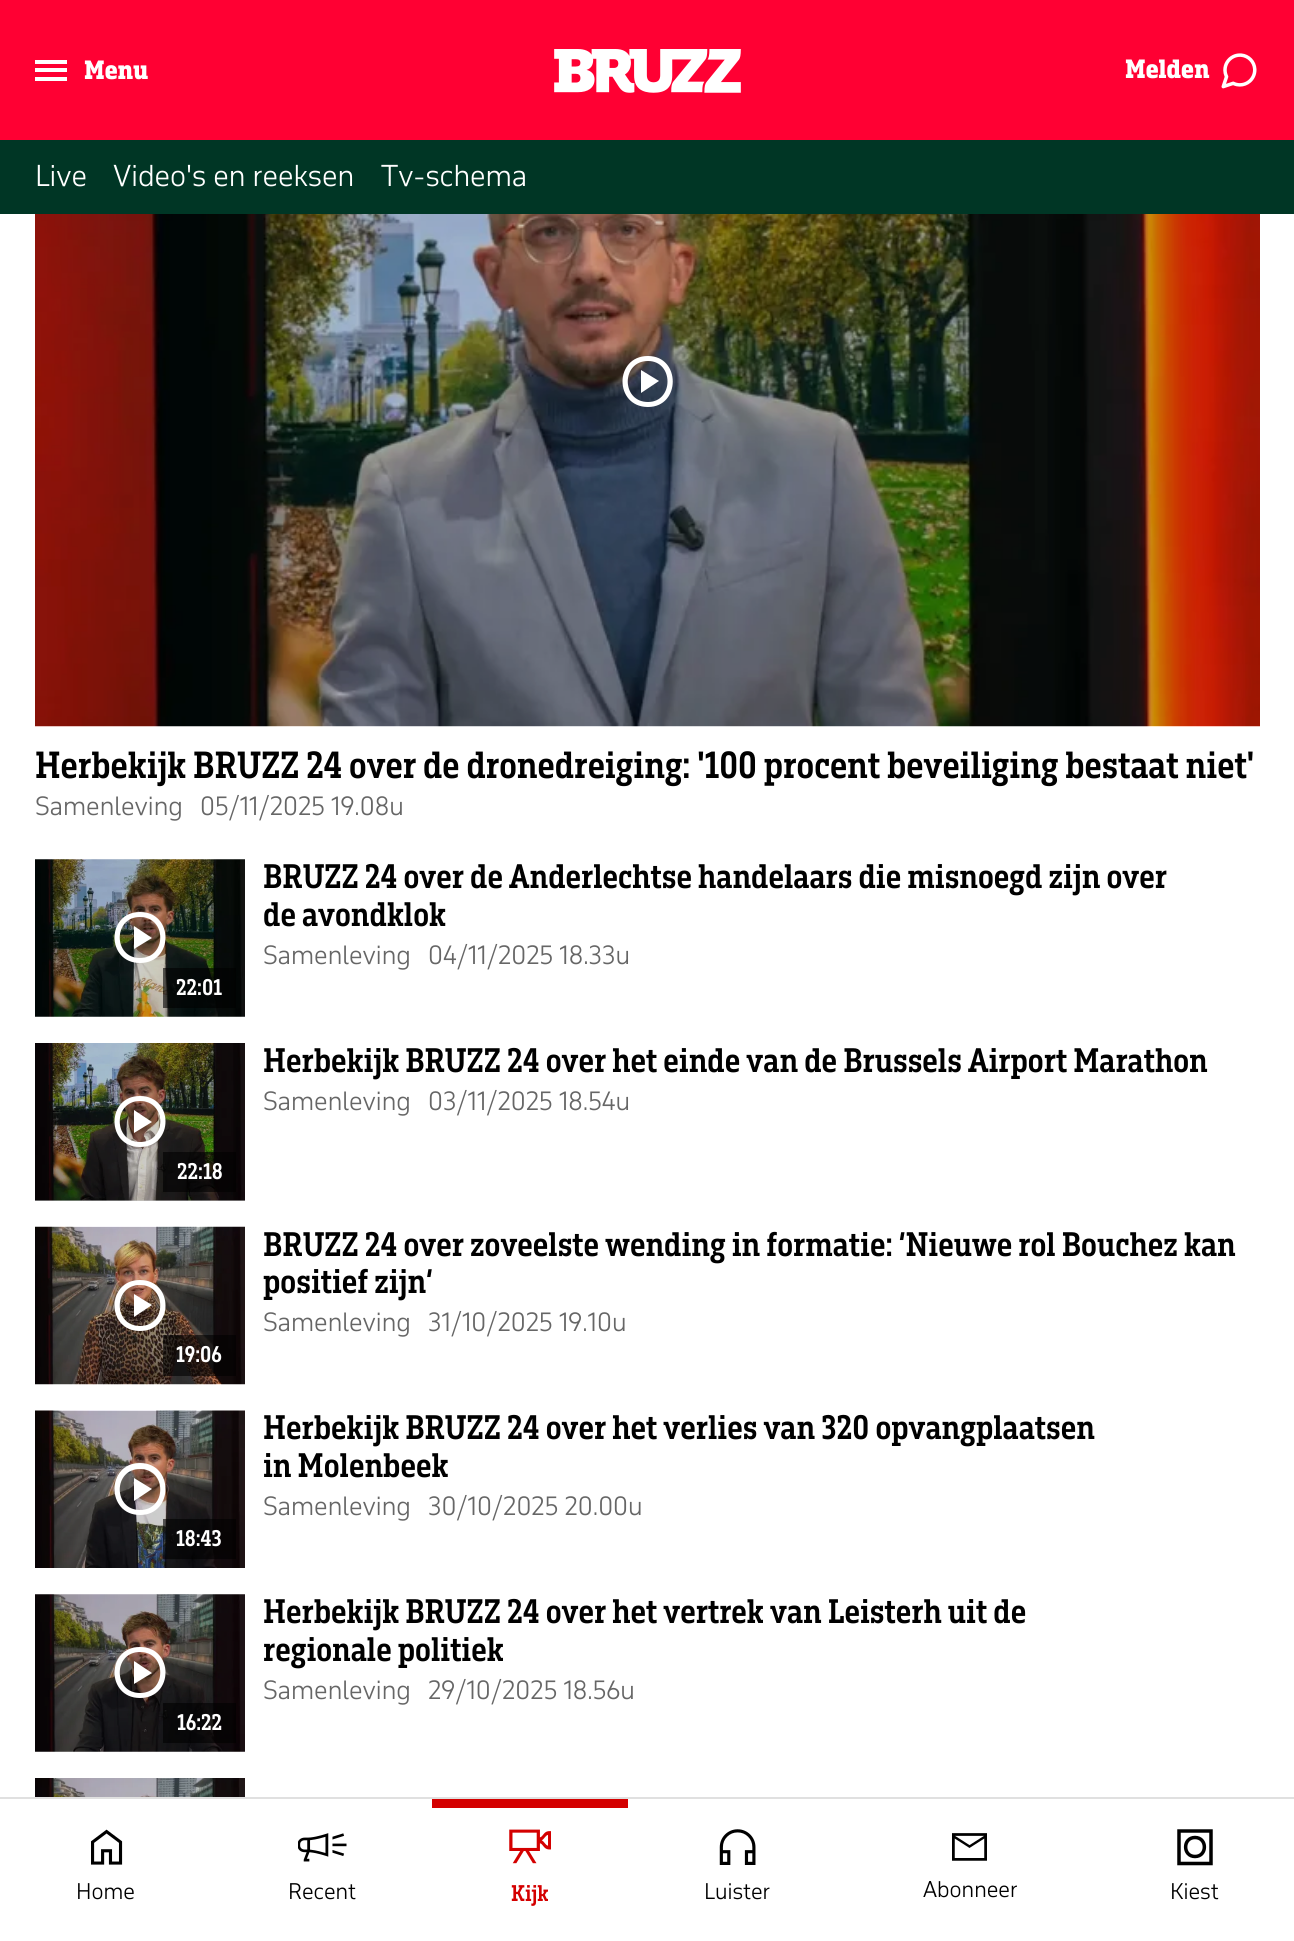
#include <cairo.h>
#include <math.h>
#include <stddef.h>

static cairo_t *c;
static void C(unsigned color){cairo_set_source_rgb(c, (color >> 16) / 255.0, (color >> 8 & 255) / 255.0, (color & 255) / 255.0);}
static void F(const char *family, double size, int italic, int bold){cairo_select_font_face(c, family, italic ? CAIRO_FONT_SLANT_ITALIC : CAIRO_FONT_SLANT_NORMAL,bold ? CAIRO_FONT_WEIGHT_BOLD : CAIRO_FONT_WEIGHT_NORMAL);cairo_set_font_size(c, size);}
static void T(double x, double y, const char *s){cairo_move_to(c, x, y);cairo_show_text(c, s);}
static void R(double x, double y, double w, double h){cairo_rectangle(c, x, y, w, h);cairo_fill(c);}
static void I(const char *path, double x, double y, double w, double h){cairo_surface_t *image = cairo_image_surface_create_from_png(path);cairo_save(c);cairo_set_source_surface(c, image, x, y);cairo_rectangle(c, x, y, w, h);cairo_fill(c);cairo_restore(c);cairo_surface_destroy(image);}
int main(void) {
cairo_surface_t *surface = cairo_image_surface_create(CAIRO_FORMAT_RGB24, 1294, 1941);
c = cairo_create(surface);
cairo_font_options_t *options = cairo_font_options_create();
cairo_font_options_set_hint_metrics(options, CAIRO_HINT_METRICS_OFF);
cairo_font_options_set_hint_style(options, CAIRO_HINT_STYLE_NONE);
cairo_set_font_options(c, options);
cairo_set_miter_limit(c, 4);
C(0xffffff);
cairo_paint(c);
C(0xcccccc);
R(35,1200,210,1);
C(0xff0033);
R(0,0,1294,140);
C(0xffffff);
R(35,60,32,4);
R(35,68,32,4);
R(35,77,32,4);
F("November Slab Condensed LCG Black",24.5,0,0);
T(84,79,"Menu");
I("1.png",554,49,187,44);
T(1125,78,"Melden");
I("2.png",1221,53,36,36);
C(0x003625);
R(0,140,1294,74);
F("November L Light",28,0,0);
C(0xffffff);
T(35,186,"Live");
T(113,186,"Video's en reeksen");
T(381,186,"Tv-schema");
I("3.png",35,214,1225,513);
cairo_new_path(c);
cairo_move_to(c,641,393);
cairo_line_to(c,659,381);
cairo_line_to(c,641,370);
cairo_close_path(c);
cairo_move_to(c,648,407);
cairo_curve_to(c,614,407,614,356,648,356);
cairo_curve_to(c,681,356,681,407,648,407);
cairo_close_path(c);
cairo_move_to(c,648,402);
cairo_curve_to(c,674,402,674,361,648,361);
cairo_curve_to(c,621,361,621,402,648,402);
cairo_close_path(c);
cairo_fill(c);
F("November Slab Condensed LCG",35,0,1);
C(0x000000);
T(35,778,"Herbekijk BRUZZ 24 over de dronedreiging: '100 procent beveiliging bestaat niet'");
F("November L Light",24.5,0,0);
C(0x666666);
T(35,815,"Samenleving");
T(200,815,"05/11/2025 19.08u");
F("November Slab Condensed LCG",31.5,0,1);
C(0x000000);
T(263,888,"BRUZZ 24 over de Anderlechtse handelaars die misnoegd zijn over");
T(263,926,"de avondklok");
F("November L Light",24.5,0,0);
C(0x666666);
T(263,964,"Samenleving");
T(428,964,"04/11/2025 18.33u");
I("4.png",35,859,210,158);
C(0xffffff);
cairo_new_path(c);
cairo_move_to(c,134,949);
cairo_line_to(c,152,938);
cairo_line_to(c,134,926);
cairo_close_path(c);
cairo_move_to(c,140,963);
cairo_curve_to(c,106,963,106,912,140,912);
cairo_curve_to(c,174,912,174,963,140,963);
cairo_close_path(c);
cairo_move_to(c,140,958);
cairo_curve_to(c,167,958,167,917,140,917);
cairo_curve_to(c,113,917,113,958,140,958);
cairo_close_path(c);
cairo_fill(c);
cairo_set_source_rgba(c,0,0,0,0.6);
R(163,968,73,40);
F("November Slab Condensed LCG",21,0,1);
C(0xffffff);
T(176,995,"22:01");
F("November Slab Condensed LCG",31.5,0,1);
C(0x000000);
T(263,1072,"Herbekijk BRUZZ 24 over het einde van de Brussels Airport Marathon");
F("November L Light",24.5,0,0);
C(0x666666);
T(263,1110,"Samenleving");
T(428,1110,"03/11/2025 18.54u");
I("5.png",35,1043,210,158);
C(0xffffff);
cairo_new_path(c);
cairo_move_to(c,134,1133);
cairo_line_to(c,152,1122);
cairo_line_to(c,134,1110);
cairo_close_path(c);
cairo_move_to(c,140,1147);
cairo_curve_to(c,106,1147,106,1096,140,1096);
cairo_curve_to(c,174,1096,174,1147,140,1147);
cairo_close_path(c);
cairo_move_to(c,140,1142);
cairo_curve_to(c,167,1142,167,1101,140,1101);
cairo_curve_to(c,113,1101,113,1142,140,1142);
cairo_close_path(c);
cairo_fill(c);
cairo_set_source_rgba(c,0,0,0,0.6);
R(163,1152,73,40);
F("November Slab Condensed LCG",21,0,1);
C(0xffffff);
T(177,1179,"22:18");
F("November Slab Condensed LCG",31.5,0,1);
C(0x000000);
T(263,1256,"BRUZZ 24 over zoveelste wending in formatie: ‘Nieuwe rol Bouchez kan");
T(263,1293,"positief zijn’");
F("November L Light",24.5,0,0);
C(0x666666);
T(263,1331,"Samenleving");
T(428,1331,"31/10/2025 19.10u");
I("6.png",35,1226,210,159);
C(0xffffff);
cairo_new_path(c);
cairo_move_to(c,134,1317);
cairo_line_to(c,152,1305);
cairo_line_to(c,134,1294);
cairo_close_path(c);
cairo_move_to(c,140,1331);
cairo_curve_to(c,106,1331,106,1280,140,1280);
cairo_curve_to(c,174,1280,174,1331,140,1331);
cairo_close_path(c);
cairo_move_to(c,140,1326);
cairo_curve_to(c,167,1326,167,1285,140,1285);
cairo_curve_to(c,113,1285,113,1326,140,1326);
cairo_close_path(c);
cairo_fill(c);
cairo_set_source_rgba(c,0,0,0,0.6);
R(163,1335,73,41);
F("November Slab Condensed LCG",21,0,1);
C(0xffffff);
T(176,1362,"19:06");
F("November Slab Condensed LCG",31.5,0,1);
C(0x000000);
T(263,1439,"Herbekijk BRUZZ 24 over het verlies van 320 opvangplaatsen");
T(263,1477,"in Molenbeek");
F("November L Light",24.5,0,0);
C(0x666666);
T(263,1515,"Samenleving");
T(428,1515,"30/10/2025 20.00u");
I("7.png",35,1410,210,158);
C(0xffffff);
cairo_new_path(c);
cairo_move_to(c,134,1501);
cairo_line_to(c,152,1489);
cairo_line_to(c,134,1478);
cairo_close_path(c);
cairo_move_to(c,140,1515);
cairo_curve_to(c,106,1515,106,1463,140,1463);
cairo_curve_to(c,174,1463,174,1515,140,1515);
cairo_close_path(c);
cairo_move_to(c,140,1510);
cairo_curve_to(c,167,1510,167,1469,140,1469);
cairo_curve_to(c,113,1469,113,1510,140,1510);
cairo_close_path(c);
cairo_fill(c);
cairo_set_source_rgba(c,0,0,0,0.6);
R(163,1519,73,40);
F("November Slab Condensed LCG",21,0,1);
C(0xffffff);
T(176,1546,"18:43");
F("November Slab Condensed LCG",31.5,0,1);
C(0x000000);
T(263,1623,"Herbekijk BRUZZ 24 over het vertrek van Leisterh uit de");
T(263,1661,"regionale politiek");
F("November L Light",24.5,0,0);
C(0x666666);
T(263,1699,"Samenleving");
T(428,1699,"29/10/2025 18.56u");
I("8.png",35,1594,210,158);
C(0xffffff);
cairo_new_path(c);
cairo_move_to(c,134,1684);
cairo_line_to(c,152,1673);
cairo_line_to(c,134,1661);
cairo_close_path(c);
cairo_move_to(c,140,1698);
cairo_curve_to(c,106,1698,106,1647,140,1647);
cairo_curve_to(c,174,1647,174,1698,140,1698);
cairo_close_path(c);
cairo_move_to(c,140,1693);
cairo_curve_to(c,167,1693,167,1652,140,1652);
cairo_curve_to(c,113,1652,113,1693,140,1693);
cairo_close_path(c);
cairo_fill(c);
cairo_set_source_rgba(c,0,0,0,0.6);
R(163,1703,73,40);
F("November Slab Condensed LCG",21,0,1);
C(0xffffff);
T(177,1730,"16:22");
I("9.png",35,1778,210,19);
C(0xe0e0e0);
R(0,1797,1294,2);
I("10.png",91,1829,32,36);
F("November L Light",21,0,0);
C(0x000000);
T(76,1899,"Home");
I("11.png",298,1833,49,29);
T(288,1899,"Recent");
C(0xd40000);
R(432,1799,196,9);
I("12.png",509,1829,42,35);
F("November Slab Condensed LCG",21,0,1);
T(511,1901,"Kijk");
I("13.png",719,1829,37,36);
F("November L Light",21,0,0);
C(0x000000);
T(704,1899,"Luister");
I("14.png",952,1833,35,28);
T(923,1897,"Abonneer");
cairo_new_path(c);
cairo_move_to(c,1211,1831);
cairo_line_to(c,1179,1831);
cairo_line_to(c,1179,1863.5);
cairo_line_to(c,1211,1863.5);
cairo_close_path(c);
cairo_move_to(c,1195,1856.5);
cairo_curve_to(c,1207.5,1856.5,1207.5,1837.5,1195,1837.5);
cairo_curve_to(c,1182.5,1837.5,1182.5,1856.5,1195,1856.5);
cairo_close_path(c);
cairo_set_line_width(c,3.5);
cairo_stroke(c);
T(1170,1899,"Kiest");
cairo_surface_write_to_png(surface, "o.png");
cairo_font_options_destroy(options);
cairo_destroy(c);
cairo_surface_destroy(surface);
return 0;
}
